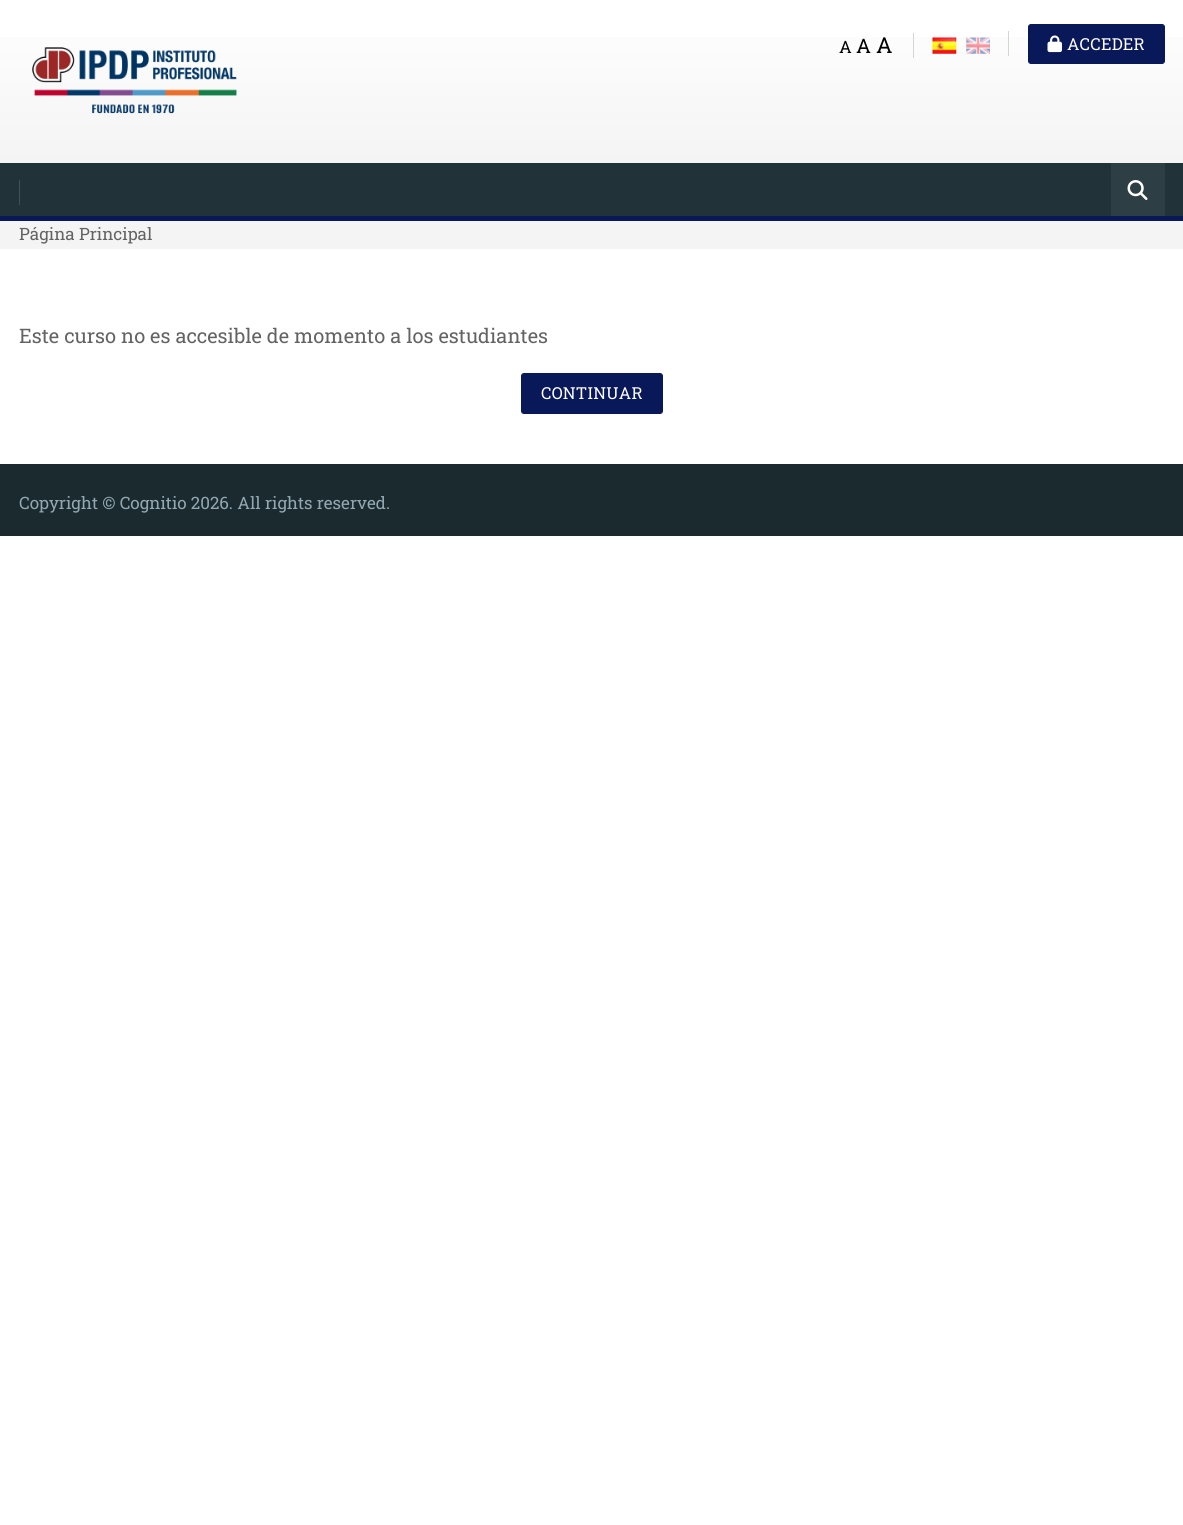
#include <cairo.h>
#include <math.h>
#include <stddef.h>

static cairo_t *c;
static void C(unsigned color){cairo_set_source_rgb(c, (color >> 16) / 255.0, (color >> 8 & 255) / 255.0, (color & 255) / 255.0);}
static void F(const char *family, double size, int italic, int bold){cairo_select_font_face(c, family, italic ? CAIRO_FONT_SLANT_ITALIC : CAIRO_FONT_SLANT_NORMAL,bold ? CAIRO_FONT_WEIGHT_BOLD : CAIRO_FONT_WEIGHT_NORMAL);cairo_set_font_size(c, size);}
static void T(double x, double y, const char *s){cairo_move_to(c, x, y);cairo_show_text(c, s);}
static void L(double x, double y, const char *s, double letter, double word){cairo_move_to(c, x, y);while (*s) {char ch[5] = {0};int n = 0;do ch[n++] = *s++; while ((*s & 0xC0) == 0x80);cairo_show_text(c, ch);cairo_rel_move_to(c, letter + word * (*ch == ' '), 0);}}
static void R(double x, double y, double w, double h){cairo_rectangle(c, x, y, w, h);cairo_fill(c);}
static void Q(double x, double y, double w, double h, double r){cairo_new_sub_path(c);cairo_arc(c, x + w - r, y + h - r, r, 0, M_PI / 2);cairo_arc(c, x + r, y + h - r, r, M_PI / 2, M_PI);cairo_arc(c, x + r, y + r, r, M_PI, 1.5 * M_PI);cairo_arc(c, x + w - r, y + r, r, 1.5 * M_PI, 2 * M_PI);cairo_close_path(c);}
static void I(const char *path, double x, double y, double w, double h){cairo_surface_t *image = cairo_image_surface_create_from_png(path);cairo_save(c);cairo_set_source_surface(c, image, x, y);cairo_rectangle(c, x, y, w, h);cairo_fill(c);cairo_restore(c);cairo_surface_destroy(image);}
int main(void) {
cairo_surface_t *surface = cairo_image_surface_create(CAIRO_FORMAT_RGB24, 1183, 1525);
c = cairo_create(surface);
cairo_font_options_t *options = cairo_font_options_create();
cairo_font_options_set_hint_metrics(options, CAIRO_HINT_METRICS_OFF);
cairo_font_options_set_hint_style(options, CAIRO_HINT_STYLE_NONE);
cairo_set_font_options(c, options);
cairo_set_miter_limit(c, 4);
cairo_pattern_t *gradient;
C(0xffffff);
cairo_paint(c);
gradient = cairo_pattern_create_linear(592,0,592,163);
cairo_pattern_add_color_stop_rgba(gradient,0,1,1,1,1);
cairo_pattern_add_color_stop_rgba(gradient,1,0.957,0.957,0.957,1);
cairo_set_source(c,gradient);
cairo_pattern_destroy(gradient);
R(0,37,1183,126);
F("Roboto Slab",17,0,0);
C(0x000000);
T(839,53,"A");
F("Roboto Slab",20,0,0);
T(856,53,"A");
F("Roboto Slab",22,0,0);
T(876,53,"A");
C(0xd5d5d5);
R(913,33,1,25);
I("1.png",932,37,25,17);
I("2.png",966,37,24,17);
R(1008,31,1,25);
C(0x091859);
Q(1028.5,24.5,136,39,2.5);
cairo_fill_preserve(c);
cairo_set_line_width(c,1);
cairo_stroke(c);
I("3.png",1047,35,16,18);
F("Roboto Slab",16.5,0,0);
C(0xffffff);
L(1067,50,"ACCEDER",.25,0);
I("4.png",32,47,205,67);
C(0x213239);
R(0,163,1183,53);
C(0x425157);
R(19,180,1,25);
C(0x2e3e45);
R(1111,163,54,53);
I("5.png",1127,180,21,20);
C(0x091859);
R(0,216,1183,5);
C(0xf4f4f4);
R(0,221,1183,28);
F("Roboto Slab",17,0,0);
C(0x636363);
T(19,240,"Página Principal");
F("Roboto Slab",20,0,0);
T(19,343,"Este curso no es accesible de momento a los estudiantes");
C(0x091859);
Q(521.5,373.5,141,40,2.5);
cairo_fill_preserve(c);
cairo_stroke(c);
F("Roboto Slab",16.5,0,0);
C(0xffffff);
L(541,399,"CONTINUAR",.25,0);
C(0x1b2a2f);
R(0,464,1183,72);
F("Roboto Slab",17,0,0);
C(0x92a9b3);
T(19,509,"Copyright © Cognitio 2026. All rights reserved.");
cairo_surface_write_to_png(surface, "o.png");
cairo_font_options_destroy(options);
cairo_destroy(c);
cairo_surface_destroy(surface);
return 0;
}
